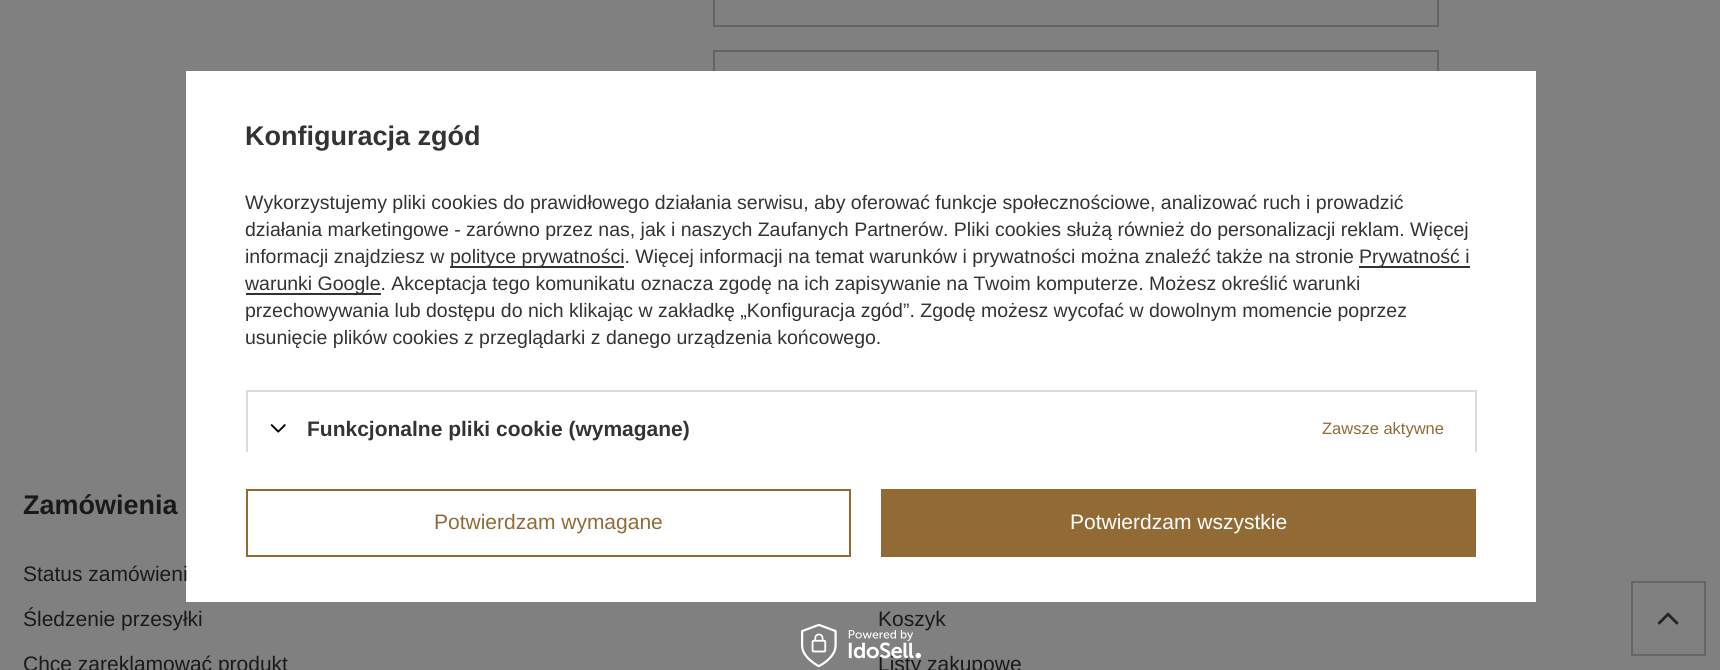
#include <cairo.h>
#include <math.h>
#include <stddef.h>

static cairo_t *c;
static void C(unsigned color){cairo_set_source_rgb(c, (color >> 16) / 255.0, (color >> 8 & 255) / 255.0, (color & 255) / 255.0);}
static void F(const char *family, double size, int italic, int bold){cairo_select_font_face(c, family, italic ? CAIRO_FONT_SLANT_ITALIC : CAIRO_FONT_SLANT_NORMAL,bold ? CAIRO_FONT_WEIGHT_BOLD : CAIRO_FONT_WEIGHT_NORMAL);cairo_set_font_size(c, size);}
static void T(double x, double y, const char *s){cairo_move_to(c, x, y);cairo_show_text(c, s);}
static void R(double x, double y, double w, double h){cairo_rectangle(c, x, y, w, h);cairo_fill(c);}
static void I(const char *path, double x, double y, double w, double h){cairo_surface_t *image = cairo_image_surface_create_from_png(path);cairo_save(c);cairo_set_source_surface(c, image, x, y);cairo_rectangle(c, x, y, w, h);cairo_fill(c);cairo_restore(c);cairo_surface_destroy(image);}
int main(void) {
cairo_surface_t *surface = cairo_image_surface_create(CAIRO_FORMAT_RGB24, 1720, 670);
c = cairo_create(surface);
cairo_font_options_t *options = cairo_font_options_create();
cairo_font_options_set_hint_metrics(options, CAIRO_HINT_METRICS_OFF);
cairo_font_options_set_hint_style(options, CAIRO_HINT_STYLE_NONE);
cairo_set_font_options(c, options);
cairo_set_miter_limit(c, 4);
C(0x808080);
cairo_paint(c);
cairo_rectangle(c,714,-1,724,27);
C(0x626464);
cairo_stroke(c);
cairo_rectangle(c,714,51,724,73);
cairo_stroke(c);
C(0xffffff);
R(186,71,1350,531);
F("Liberation Sans",27,0,1);
C(0x333333);
T(245,145,"Konfiguracja zgód");
F("Liberation Sans",19.5,0,0);
T(245,209,"Wykorzystujemy pliki cookies do prawidłowego działania serwisu, aby oferować funkcje społecznościowe, analizować ruch i prowadzić");
T(245,236,"działania marketingowe - zarówno przez nas, jak i naszych Zaufanych Partnerów. Pliki cookies służą również do personalizacji reklam. Więcej");
T(245,263,"informacji znajdziesz w");
R(450,266,174,2);
T(450,263,"polityce prywatności. Więcej informacji na temat warunków i prywatności można znaleźć także na stronie");
R(1359,266,111,2);
T(1359,263,"Prywatność i");
R(246,293,135,2);
T(245,290,"warunki Google. Akceptacja tego komunikatu oznacza zgodę na ich zapisywanie na Twoim komputerze. Możesz określić warunki");
T(245,317,"przechowywania lub dostępu do nich klikając w zakładkę „Konfiguracja zgód”. Zgodę możesz wycofać w dowolnym momencie poprzez");
T(245,344,"usunięcie plików cookies z przeglądarki z danego urządzenia końcowego.");
C(0xdbdbdb);
R(246,390,1230,2);
R(1475,390,2,62);
R(246,390,2,62);
I("1.png",270,424,16,9);
F("Liberation Sans",21,0,1);
C(0x333333);
T(307,436,"Funkcjonalne pliki cookie (wymagane)");
F("Liberation Sans",16.5,0,0);
C(0x926a36);
T(1322,434,"Zawsze aktywne");
cairo_rectangle(c,247,490,603,66);
cairo_stroke(c);
F("Liberation Sans",21,0,0);
T(434,529,"Potwierdzam wymagane");
R(881,489,595,68);
C(0xffffff);
T(1070,529,"Potwierdzam wszystkie");
C(0x1a1a1a);
T(878,626,"Koszyk");
T(878,671,"Listy zakupowe");
I("2.png",801,624,120,43);
F("Liberation Sans",27,0,1);
T(23,514,"Zamówienia");
F("Liberation Sans",21,0,0);
T(23,581,"Status zamówieni");
T(23,626,"Śledzenie przesyłki");
T(23,671,"Chcę zareklamować produkt");
cairo_rectangle(c,1632,582,73,73);
C(0x656767);
cairo_stroke(c);
I("3.png",1657,612,22,13);
cairo_surface_write_to_png(surface, "o.png");
cairo_font_options_destroy(options);
cairo_destroy(c);
cairo_surface_destroy(surface);
return 0;
}
